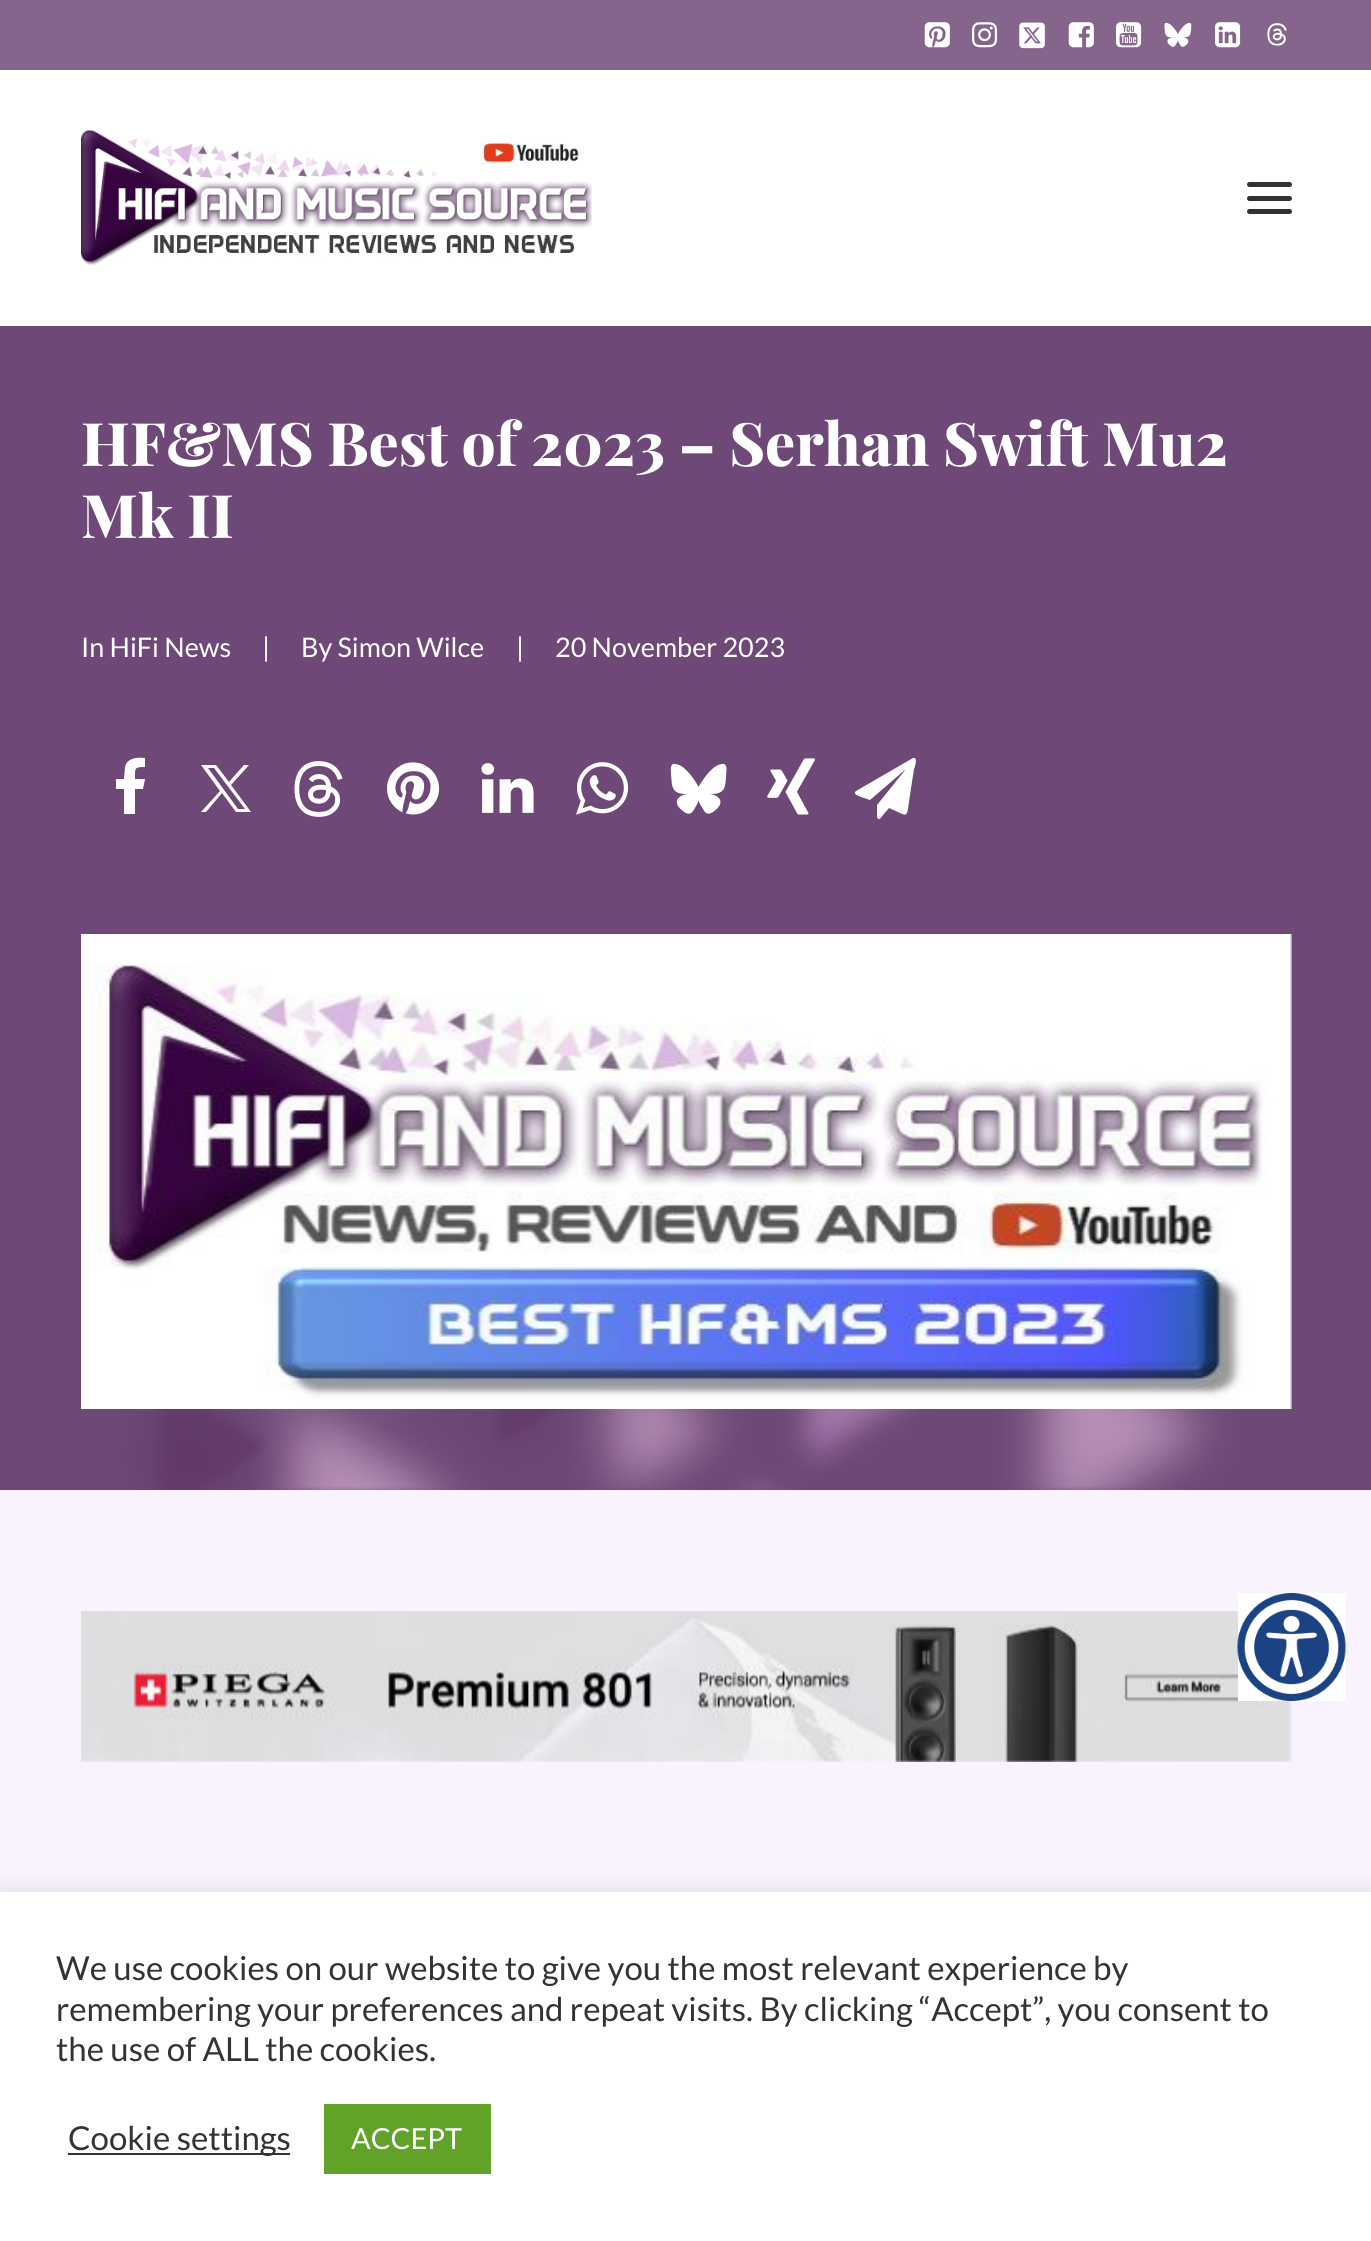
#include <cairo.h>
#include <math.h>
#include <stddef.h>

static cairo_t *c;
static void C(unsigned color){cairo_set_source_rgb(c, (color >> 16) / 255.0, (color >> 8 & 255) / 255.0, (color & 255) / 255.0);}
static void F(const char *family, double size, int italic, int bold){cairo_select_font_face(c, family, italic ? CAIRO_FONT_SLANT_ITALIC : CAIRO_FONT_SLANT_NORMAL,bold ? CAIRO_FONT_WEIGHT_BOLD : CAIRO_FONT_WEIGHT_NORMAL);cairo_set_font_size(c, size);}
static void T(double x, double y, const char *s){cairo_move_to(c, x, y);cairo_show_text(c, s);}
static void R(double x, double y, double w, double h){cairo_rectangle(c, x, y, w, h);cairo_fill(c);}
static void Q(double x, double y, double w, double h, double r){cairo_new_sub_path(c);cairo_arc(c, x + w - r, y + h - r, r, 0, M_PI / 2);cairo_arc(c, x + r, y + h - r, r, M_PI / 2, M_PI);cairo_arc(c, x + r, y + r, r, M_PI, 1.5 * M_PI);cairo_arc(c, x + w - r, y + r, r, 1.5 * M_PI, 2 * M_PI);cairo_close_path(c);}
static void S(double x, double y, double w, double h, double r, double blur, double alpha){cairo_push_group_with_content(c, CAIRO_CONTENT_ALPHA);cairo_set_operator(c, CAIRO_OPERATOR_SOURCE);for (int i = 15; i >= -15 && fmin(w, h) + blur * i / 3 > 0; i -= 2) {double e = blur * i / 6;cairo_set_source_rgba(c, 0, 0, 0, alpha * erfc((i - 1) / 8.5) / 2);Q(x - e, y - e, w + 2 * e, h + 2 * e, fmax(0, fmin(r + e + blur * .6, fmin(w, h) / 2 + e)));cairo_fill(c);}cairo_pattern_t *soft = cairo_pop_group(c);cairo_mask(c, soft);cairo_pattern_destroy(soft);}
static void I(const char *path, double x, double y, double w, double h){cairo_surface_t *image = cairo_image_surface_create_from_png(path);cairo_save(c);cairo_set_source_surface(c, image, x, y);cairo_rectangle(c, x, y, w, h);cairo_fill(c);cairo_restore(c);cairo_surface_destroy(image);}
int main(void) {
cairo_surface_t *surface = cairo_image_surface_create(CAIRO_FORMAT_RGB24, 1371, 2241);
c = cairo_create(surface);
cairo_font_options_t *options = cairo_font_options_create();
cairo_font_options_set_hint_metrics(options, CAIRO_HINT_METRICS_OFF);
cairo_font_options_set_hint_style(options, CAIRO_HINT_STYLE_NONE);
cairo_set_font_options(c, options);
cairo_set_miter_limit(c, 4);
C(0x6e4876);
cairo_paint(c);
C(0x85658c);
R(0,0,1371,70);
I("1.png",924,22,26,26);
I("2.png",972,22,26,26);
I("3.png",1019,22,26,27);
I("4.png",1068,22,26,26);
I("5.png",1116,22,26,26);
I("6.png",1164,22,28,25);
I("7.png",1215,22,26,26);
I("8.png",1267,23,20,23);
C(0xffffff);
R(0,70,1371,256);
I("9.png",81,130,511,136);
C(0x303133);
Q(1247,196,45,5,2.5);
cairo_fill(c);
Q(1247,182,45,5,2.5);
cairo_fill(c);
Q(1247,209,45,5,2.5);
cairo_fill(c);
F("Playfair Display ExtraBold",60,0,0);
C(0xffffff);
T(81,466,"HF&MS Best of 2023 – Serhan Swift Mu2");
T(81,538,"Mk II");
F("Lato",27,0,0);
T(81,657,"In HiFi News");
T(262,657,"|");
T(301,657,"By Simon Wilce");
T(516,657,"|");
T(555,657,"20 November 2023");
cairo_new_path(c);
cairo_move_to(c,145,758);
cairo_line_to(c,145,767);
cairo_curve_to(c,134,767,135,768,135,779);
cairo_line_to(c,145,779);
cairo_line_to(c,143,789);
cairo_line_to(c,135,789);
cairo_line_to(c,135,814);
cairo_line_to(c,124,814);
cairo_line_to(c,124,789);
cairo_line_to(c,116,789);
cairo_line_to(c,116,779);
cairo_line_to(c,124,779);
cairo_line_to(c,125,767);
cairo_curve_to(c,127,758,137,757,145,758);
cairo_close_path(c);
cairo_fill(c);
cairo_new_path(c);
cairo_move_to(c,201,765);
cairo_line_to(c,220,791);
cairo_line_to(c,201,812);
cairo_line_to(c,206,812);
cairo_line_to(c,222,793);
cairo_line_to(c,236,812);
cairo_line_to(c,251,812);
cairo_line_to(c,231,785);
cairo_line_to(c,249,765);
cairo_line_to(c,244,765);
cairo_line_to(c,229,782);
cairo_line_to(c,216,765);
cairo_close_path(c);
cairo_move_to(c,208,768);
cairo_line_to(c,214,768);
cairo_line_to(c,245,809);
cairo_line_to(c,238,809);
cairo_close_path(c);
cairo_fill(c);
I("10.png",294,761,49,56);
I("11.png",387,762,53,53);
I("12.png",481,763,53,50);
I("13.png",576,762,53,53);
I("14.png",670,763,57,51);
I("15.png",767,758,48,57);
cairo_new_path(c);
cairo_move_to(c,915,758);
cairo_curve_to(c,917,760,915,767,914,769);
cairo_line_to(c,910,795);
cairo_curve_to(c,906,820,910,817,889,808);
cairo_line_to(c,883,815);
cairo_curve_to(c,882,816,880,820,878,819);
cairo_line_to(c,877,817);
cairo_line_to(c,877,805);
cairo_line_to(c,906,769);
cairo_line_to(c,870,800);
cairo_line_to(c,861,797);
cairo_curve_to(c,859,796,852,794,856,791);
cairo_line_to(c,913,758);
cairo_close_path(c);
cairo_fill(c);
I("16.png",81,934,1211,475);
I("17.png",121,1409,1112,81);
C(0xf8f3ff);
R(0,1490,1371,402);
I("18.png",81,1611,1211,151);
C(0xffffff);
R(1238,1593,108,108);
I("19.png",1237,1593,109,108);
C(0xacabab);
S(0,1890,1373,349,0,11,.3);
C(0xffffff);
R(0,1892,1371,349);
F("Lato",33,0,0);
C(0x333333);
T(56,1980,"We use cookies on our website to give you the most relevant experience by");
T(56,2021,"remembering your preferences and repeat visits. By clicking “Accept”, you consent to");
T(56,2061,"the use of ALL the cookies.");
R(68,2153,222,2);
T(68,2150,"Cookie settings");
C(0x61a229);
R(324,2104,167,70);
F("Lato",29,0,0);
C(0xffffff);
T(351,2149,"ACCEPT");
cairo_surface_write_to_png(surface, "o.png");
cairo_font_options_destroy(options);
cairo_destroy(c);
cairo_surface_destroy(surface);
return 0;
}
